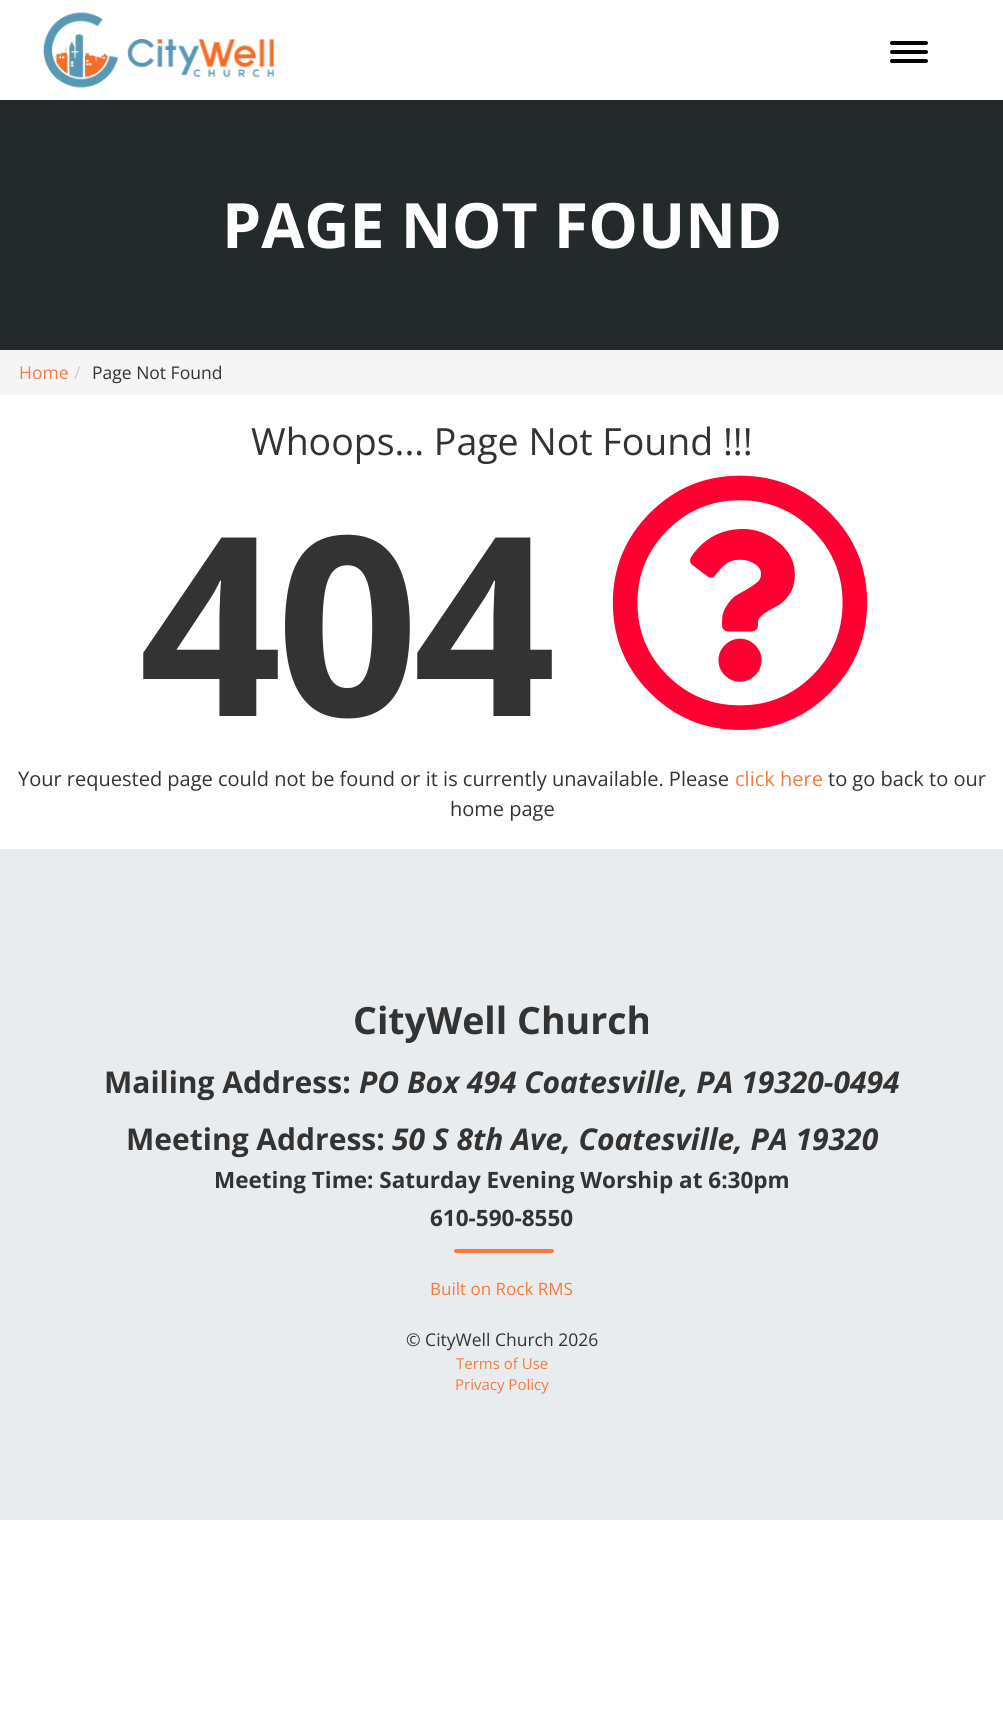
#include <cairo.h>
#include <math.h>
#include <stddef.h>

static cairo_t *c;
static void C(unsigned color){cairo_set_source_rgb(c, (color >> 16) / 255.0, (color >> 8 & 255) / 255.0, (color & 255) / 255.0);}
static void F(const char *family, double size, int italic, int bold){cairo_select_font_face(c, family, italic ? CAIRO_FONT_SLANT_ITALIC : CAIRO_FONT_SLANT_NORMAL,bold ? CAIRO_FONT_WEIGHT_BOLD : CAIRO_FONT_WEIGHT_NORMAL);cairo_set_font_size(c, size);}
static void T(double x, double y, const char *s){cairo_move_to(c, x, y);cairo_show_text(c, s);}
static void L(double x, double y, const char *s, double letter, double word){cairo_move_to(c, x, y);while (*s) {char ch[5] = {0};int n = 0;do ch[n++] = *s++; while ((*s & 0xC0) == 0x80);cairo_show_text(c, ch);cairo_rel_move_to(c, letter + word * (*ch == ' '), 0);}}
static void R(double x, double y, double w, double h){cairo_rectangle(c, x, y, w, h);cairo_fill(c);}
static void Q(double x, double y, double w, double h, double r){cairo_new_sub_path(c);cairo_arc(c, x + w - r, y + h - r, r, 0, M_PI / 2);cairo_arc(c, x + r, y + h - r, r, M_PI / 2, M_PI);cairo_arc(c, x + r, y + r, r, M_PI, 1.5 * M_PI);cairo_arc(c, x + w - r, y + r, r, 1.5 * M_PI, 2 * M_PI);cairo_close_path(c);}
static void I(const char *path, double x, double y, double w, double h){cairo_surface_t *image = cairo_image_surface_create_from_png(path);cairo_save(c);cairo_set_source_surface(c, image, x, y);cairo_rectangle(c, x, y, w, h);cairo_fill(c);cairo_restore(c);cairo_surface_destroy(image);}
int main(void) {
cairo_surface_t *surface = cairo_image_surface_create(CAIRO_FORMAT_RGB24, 1003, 1727);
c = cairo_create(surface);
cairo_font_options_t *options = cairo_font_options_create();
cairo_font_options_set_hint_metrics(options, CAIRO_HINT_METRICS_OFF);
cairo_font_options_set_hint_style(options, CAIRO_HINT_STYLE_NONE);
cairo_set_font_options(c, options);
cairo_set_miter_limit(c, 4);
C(0xffffff);
cairo_paint(c);
I("1.png",43,12,231,76);
C(0x000000);
Q(890,41,38,4,2);
cairo_fill(c);
Q(890,50,38,4,2);
cairo_fill(c);
Q(890,59,38,4,2);
cairo_fill(c);
C(0x24292c);
R(0,100,1003,250);
F("Open Sans",62.5,0,1);
C(0xffffff);
T(222,248,"PAGE NOT FOUND");
C(0xf5f5f5);
R(0,350,1003,45);
F("Open Sans",17.5,0,0);
C(0xf77a3e);
T(19,379,"Home");
C(0xcccccc);
T(74,379,"/");
C(0x333333);
T(92,379,"Page Not Found");
F("Open Sans",37.5,0,0);
T(251,455,"Whoops... Page Not Found !!!");
F("Open Sans",250,0,1);
L(139,716,"404",-6,0);
I("2.png",612,475,256,255);
F("Open Sans",20,0,0);
T(18,786,"Your requested page could not be found or it is currently unavailable. Please");
C(0xf77a3e);
T(735,786,"click here");
C(0x333333);
T(828,786,"to go back to our");
T(450,816,"home page");
C(0xe9ecef);
R(0,849,1003,671);
F("Open Sans",37.5,0,1);
C(0x333333);
T(353,1034,"CityWell Church");
F("Open Sans",30,0,1);
T(104,1093,"Mailing Address:");
F("Open Sans",30,1,1);
T(359,1093,"PO Box 494 Coatesville, PA 19320-0494");
F("Open Sans",30,0,1);
T(126,1150,"Meeting Address:");
F("Open Sans",30,1,1);
T(392,1150,"50 S 8th Ave, Coatesville, PA 19320");
F("Open Sans",22.5,0,1);
T(214,1188,"Meeting Time: Saturday Evening Worship at 6:30pm");
T(430,1226,"610-590-8550");
C(0xf77a3e);
Q(454,1249,100,4,2);
cairo_fill(c);
F("Open Sans",17,0,0);
T(430,1295,"Built on Rock RMS");
F("Open Sans",17.5,0,0);
C(0x333333);
T(406,1346,"© CityWell Church 2026");
F("Open Sans",15,0,0);
C(0xf77a3e);
T(456,1369,"Terms of Use");
T(455,1390,"Privacy Policy");
cairo_surface_write_to_png(surface, "o.png");
cairo_font_options_destroy(options);
cairo_destroy(c);
cairo_surface_destroy(surface);
return 0;
}
